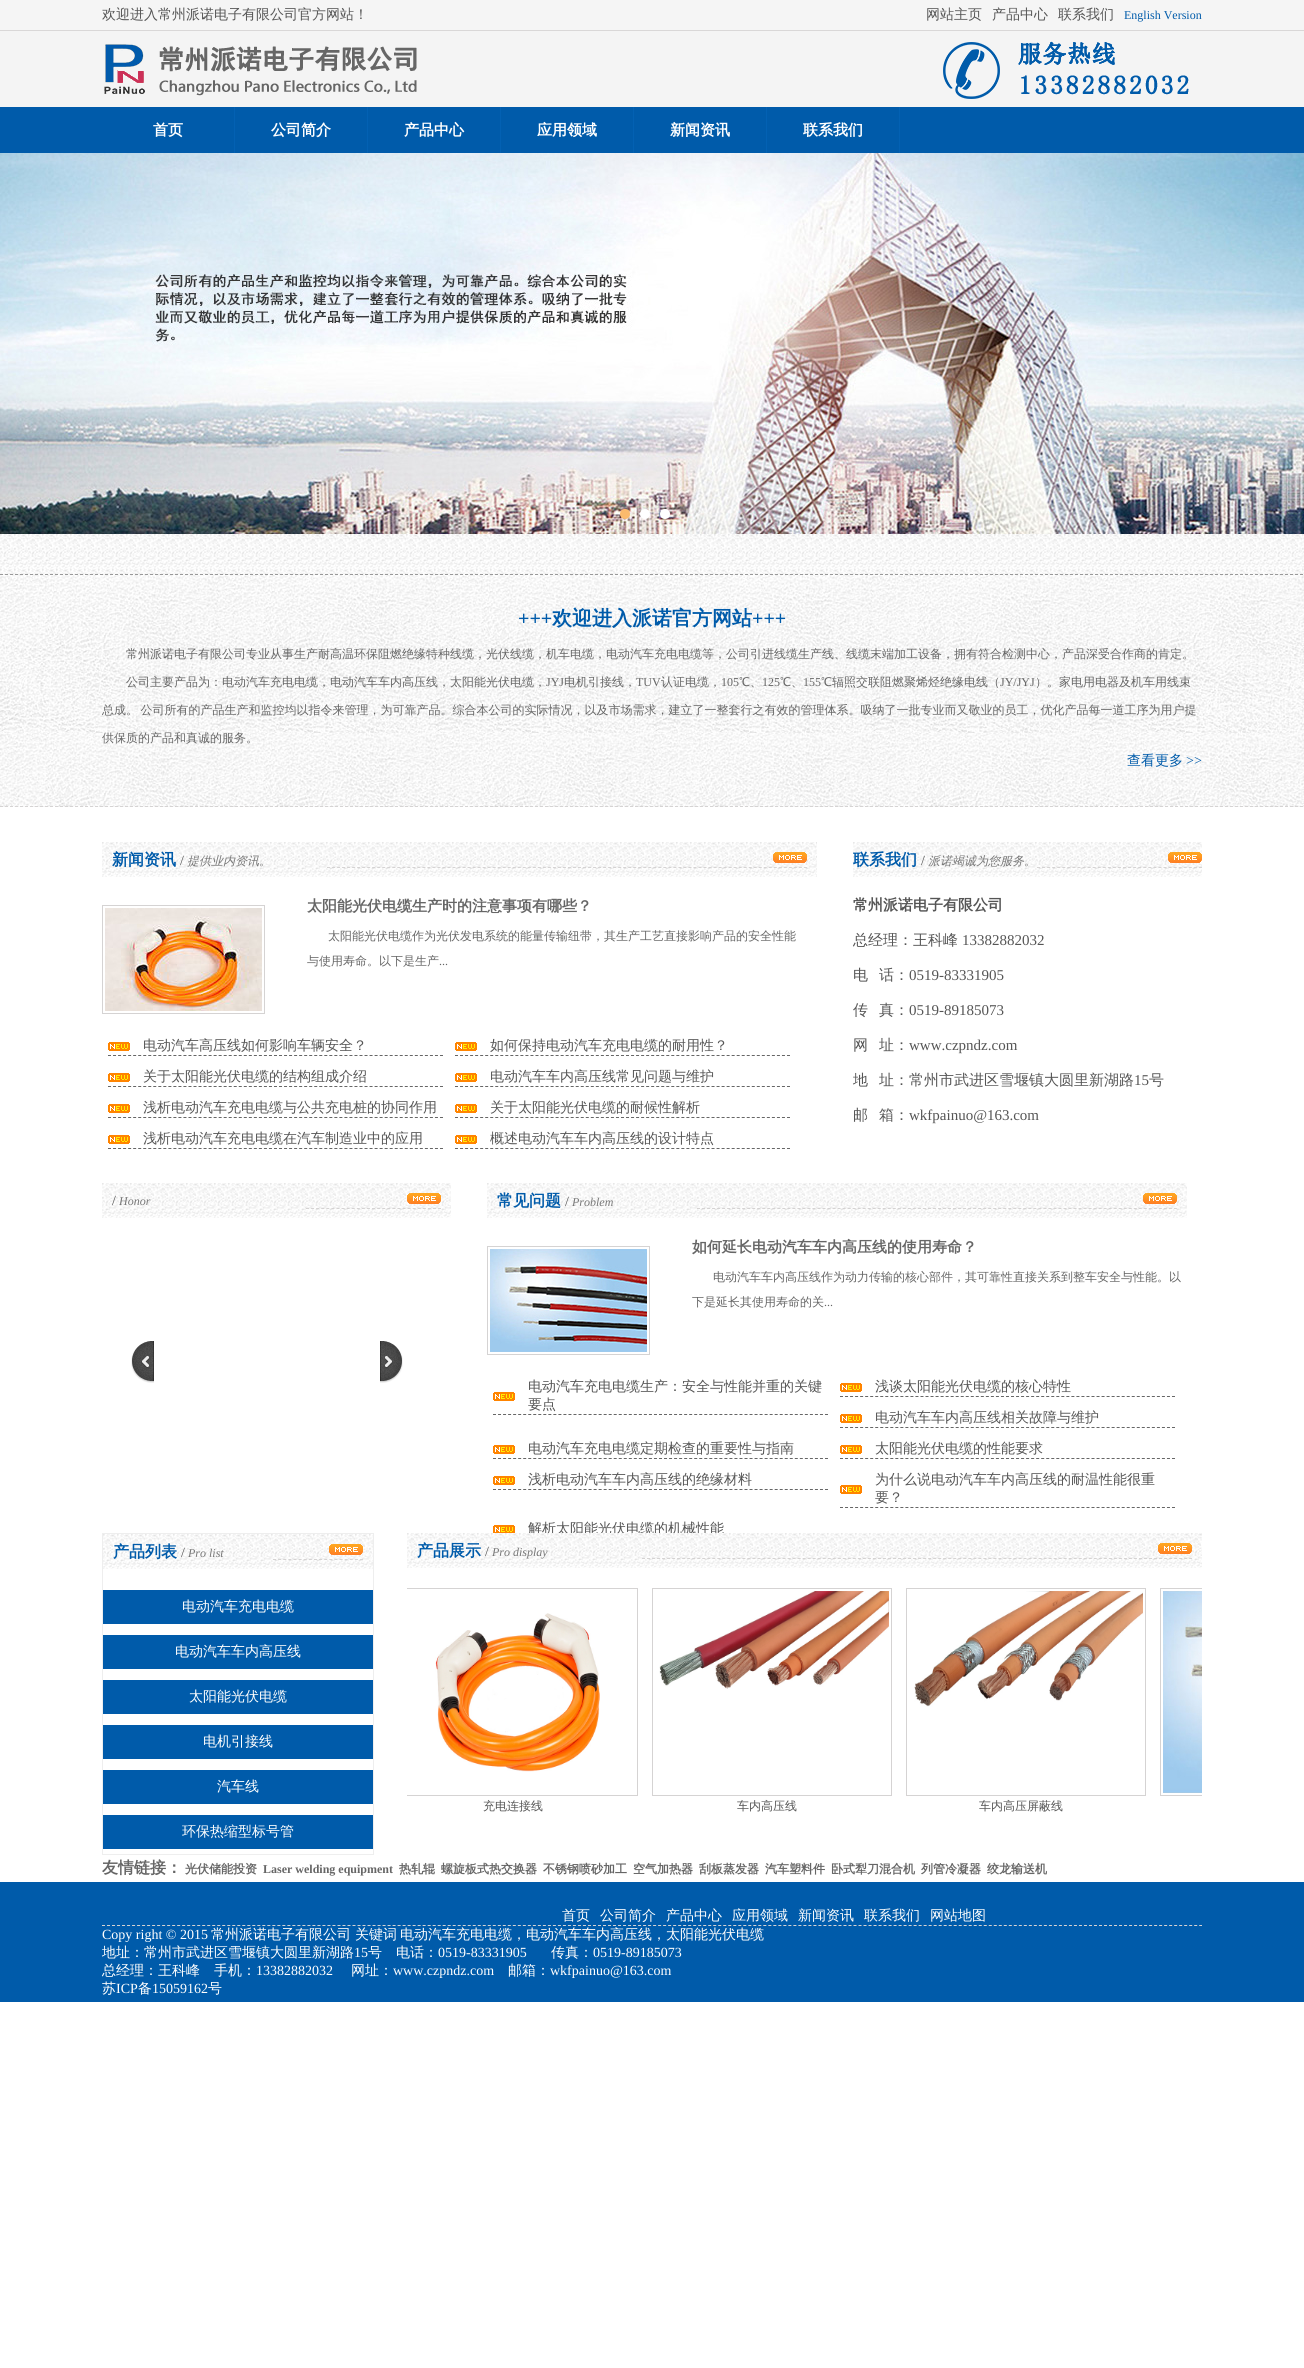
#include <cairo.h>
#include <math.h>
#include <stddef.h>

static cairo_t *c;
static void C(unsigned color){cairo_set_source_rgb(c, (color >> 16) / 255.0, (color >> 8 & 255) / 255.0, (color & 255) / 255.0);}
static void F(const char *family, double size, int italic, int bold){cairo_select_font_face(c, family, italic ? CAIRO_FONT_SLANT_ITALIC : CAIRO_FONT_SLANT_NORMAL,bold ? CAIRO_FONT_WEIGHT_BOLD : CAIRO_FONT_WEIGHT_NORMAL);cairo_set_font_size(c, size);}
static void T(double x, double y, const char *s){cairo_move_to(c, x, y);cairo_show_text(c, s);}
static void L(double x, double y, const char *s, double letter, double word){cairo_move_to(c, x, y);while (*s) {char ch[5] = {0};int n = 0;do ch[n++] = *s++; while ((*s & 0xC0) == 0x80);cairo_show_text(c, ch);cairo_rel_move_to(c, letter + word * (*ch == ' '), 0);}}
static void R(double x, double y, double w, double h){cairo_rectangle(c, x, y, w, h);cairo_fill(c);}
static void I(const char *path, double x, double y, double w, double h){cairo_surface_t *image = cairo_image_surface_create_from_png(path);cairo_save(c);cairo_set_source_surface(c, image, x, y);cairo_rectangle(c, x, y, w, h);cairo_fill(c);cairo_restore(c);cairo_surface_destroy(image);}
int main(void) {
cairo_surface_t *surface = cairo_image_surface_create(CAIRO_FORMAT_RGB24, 1304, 2368);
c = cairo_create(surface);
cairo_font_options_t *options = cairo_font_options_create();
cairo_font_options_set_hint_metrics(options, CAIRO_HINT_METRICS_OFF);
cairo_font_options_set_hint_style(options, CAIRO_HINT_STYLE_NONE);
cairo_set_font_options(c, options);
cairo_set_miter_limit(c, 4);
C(0xffffff);
cairo_paint(c);
C(0xf5f5f5);
R(0,0,1304,30);
C(0xd9d7d7);
R(0,30,1304,1);
F("WenQuanYi Zen Hei Medium",14,0,0);
C(0x555555);
T(102,19,"欢迎进入常州派诺电子有限公司官方网站！");
T(926,19,"网站主页");
T(992,19,"产品中心");
T(1058,19,"联系我们");
F("Liberation Serif",12,0,0);
C(0x005baa);
T(1124,19,"English Version");
C(0xf4f4f4);
R(0,31,1304,76);
I("1.png",104,44,313,52);
I("2.png",943,41,246,58);
C(0x005baa);
R(0,107,1304,46);
C(0x0361b3);
R(234,107,1,46);
F("WenQuanYi Zen Hei",15,0,1);
C(0xffffff);
T(153,135,"首页");
C(0x0361b3);
R(367,107,1,46);
C(0xffffff);
T(271,135,"公司简介");
C(0x0361b3);
R(500,107,1,46);
C(0xffffff);
T(404,135,"产品中心");
C(0x0361b3);
R(633,107,1,46);
C(0xffffff);
T(537,135,"应用领域");
C(0x0361b3);
R(766,107,1,46);
C(0xffffff);
T(670,135,"新闻资讯");
C(0x0361b3);
R(899,107,1,46);
C(0xffffff);
T(803,135,"联系我们");
I("3.png",0,153,1304,381);
C(0xfbba6d);
cairo_arc(c,625,514,5,0,2 * M_PI);
cairo_fill(c);
C(0xffffff);
cairo_arc(c,645,514,5,0,2 * M_PI);
cairo_fill(c);
cairo_arc(c,665,514,5,0,2 * M_PI);
cairo_fill(c);
I("4.png",0,534,1304,41);
cairo_new_path(c);
cairo_move_to(c,0,574.5);
cairo_line_to(c,1304,574.5);
C(0x999999);
cairo_set_line_width(c,1);
cairo_set_dash(c,(double[]){3,2},2,0);
cairo_stroke(c);
I("5.png",0,575,1304,232);
cairo_new_path(c);
cairo_move_to(c,0,806.5);
cairo_line_to(c,1304,806.5);
C(0xd5d3d3);
cairo_stroke(c);
F("Liberation Serif",20,0,1);
C(0x005baa);
T(518,625,"+++");
F("WenQuanYi Zen Hei",20,0,1);
T(552,625,"欢迎进入派诺官方网站");
F("Liberation Serif",20,0,1);
T(752,625,"+++");
F("WenQuanYi Zen Hei Medium",12,0,0);
C(0x666666);
T(126,658,"常州派诺电子有限公司专业从事生产耐高温环保阻燃绝缘特种线缆，光伏线缆，机车电缆，电动汽车充电电缆等，公司引进线缆生产线、线缆末端加工设备，拥有符合检测中心，产品深受合作商的肯定。");
T(126,686,"公司主要产品为：电动汽车充电电缆，电动汽车车内高压线，太阳能光伏电缆，");
F("Liberation Serif",12,0,0);
T(546,686,"JYJ");
F("WenQuanYi Zen Hei Medium",12,0,0);
T(564,686,"电机引接线，");
F("Liberation Serif",12,0,0);
T(636,686,"TUV");
F("WenQuanYi Zen Hei Medium",12,0,0);
T(661,686,"认证电缆，");
F("Liberation Serif",12,0,0);
T(721,686,"105");
F("WenQuanYi Zen Hei Medium",12,0,0);
T(739,686,"℃、");
F("Liberation Serif",12,0,0);
T(762,686,"125");
F("WenQuanYi Zen Hei Medium",12,0,0);
T(780,686,"℃、");
F("Liberation Serif",12,0,0);
T(803,686,"155");
F("WenQuanYi Zen Hei Medium",12,0,0);
T(821,686,"℃辐照交联阻燃聚烯烃绝缘电线（");
F("Liberation Serif",12,0,0);
T(1000,686,"JY/JYJ");
F("WenQuanYi Zen Hei Medium",12,0,0);
T(1035,686,"）。家电用电器及机车用线束");
L(102,714,"总成。 公司所有的产品生产和监控均以指令来管理，为可靠产品。综合本公司的实际情况，以及市场需求，建立了一整套行之有效的管理体系。吸纳了一批专业而又敬业的员工，优化产品每一道工序为用户提",0,-1);
T(102,742,"供保质的产品和真诚的服务。");
F("WenQuanYi Zen Hei Medium",14,0,0);
C(0x005baa);
T(1127,765,"查看更多");
F("Liberation Serif",14,0,0);
T(1186,765,">>");
I("6.png",102,842,715,35);
F("WenQuanYi Zen Hei",16,0,1);
T(112,865,"新闻资讯");
F("Liberation Serif",14,0,0);
C(0x555555);
T(180,865,"/");
F("WenQuanYi Zen Hei Medium",12,1,0);
C(0x777777);
T(187,865,"提供业内资讯。");
cairo_new_path(c);
cairo_move_to(c,327,867.5);
cairo_line_to(c,807,867.5);
C(0xd5d3d3);
cairo_set_dash(c,(double[]){3,2.02},2,0);
cairo_stroke(c);
I("7.png",773,852,34,11);
cairo_rectangle(c,102.5,905.5,162,108);
cairo_set_dash(c,NULL,0,0);
cairo_stroke(c);
I("8.png",105,908,157,103);
F("WenQuanYi Zen Hei",15,0,1);
C(0x666666);
T(307,911,"太阳能光伏电缆生产时的注意事项有哪些？");
F("WenQuanYi Zen Hei Medium",12,0,0);
T(328,940,"太阳能光伏电缆作为光伏发电系统的能量传输纽带，其生产工艺直接影响产品的安全性能");
T(307,965,"与使用寿命。以下是生产");
F("Liberation Serif",12,0,0);
T(439,965,"...");
I("9.png",108,1042,22,9);
cairo_new_path(c);
cairo_move_to(c,108,1055.5);
cairo_line_to(c,443,1055.5);
cairo_set_dash(c,(double[]){3,2.03},2,0);
cairo_stroke(c);
F("WenQuanYi Zen Hei Medium",14,0,0);
C(0x555555);
T(143,1050,"电动汽车高压线如何影响车辆安全？");
I("9.png",455,1042,22,9);
cairo_new_path(c);
cairo_move_to(c,455,1055.5);
cairo_line_to(c,790,1055.5);
C(0x666666);
cairo_stroke(c);
C(0x555555);
T(490,1050,"如何保持电动汽车充电电缆的耐用性？");
I("9.png",108,1073,22,9);
cairo_new_path(c);
cairo_move_to(c,108,1086.5);
cairo_line_to(c,443,1086.5);
C(0x666666);
cairo_stroke(c);
C(0x555555);
T(143,1081,"关于太阳能光伏电缆的结构组成介绍");
I("9.png",455,1073,22,9);
cairo_new_path(c);
cairo_move_to(c,455,1086.5);
cairo_line_to(c,790,1086.5);
C(0x666666);
cairo_stroke(c);
C(0x555555);
T(490,1081,"电动汽车车内高压线常见问题与维护");
I("9.png",108,1104,22,9);
cairo_new_path(c);
cairo_move_to(c,108,1117.5);
cairo_line_to(c,443,1117.5);
C(0x666666);
cairo_stroke(c);
C(0x555555);
T(143,1112,"浅析电动汽车充电电缆与公共充电桩的协同作用");
I("9.png",455,1104,22,9);
cairo_new_path(c);
cairo_move_to(c,455,1117.5);
cairo_line_to(c,790,1117.5);
C(0x666666);
cairo_stroke(c);
C(0x555555);
T(490,1112,"关于太阳能光伏电缆的耐候性解析");
I("9.png",108,1135,22,9);
cairo_new_path(c);
cairo_move_to(c,108,1148.5);
cairo_line_to(c,443,1148.5);
C(0x666666);
cairo_stroke(c);
C(0x555555);
T(143,1143,"浅析电动汽车充电电缆在汽车制造业中的应用");
I("9.png",455,1135,22,9);
cairo_new_path(c);
cairo_move_to(c,455,1148.5);
cairo_line_to(c,790,1148.5);
C(0x666666);
cairo_stroke(c);
C(0x555555);
T(490,1143,"概述电动汽车车内高压线的设计特点");
I("10.png",853,842,349,35);
F("WenQuanYi Zen Hei",16,0,1);
C(0x005baa);
T(853,865,"联系我们");
F("Liberation Serif",14,0,0);
C(0x555555);
T(921,865,"/");
F("WenQuanYi Zen Hei Medium",12,1,0);
C(0x777777);
T(928,865,"派诺竭诚为您服务。");
cairo_new_path(c);
cairo_move_to(c,1037,867.5);
cairo_line_to(c,1202,867.5);
C(0xd5d3d3);
cairo_set_dash(c,(double[]){3,2.06},2,0);
cairo_stroke(c);
I("11.png",1168,852,34,11);
F("WenQuanYi Zen Hei",15,0,1);
C(0x555555);
T(853,910,"常州派诺电子有限公司");
F("WenQuanYi Zen Hei Medium",15,0,0);
T(853,945,"总经理：王科峰");
F("Liberation Serif",15,0,0);
T(962,945,"13382882032");
F("WenQuanYi Zen Hei Medium",15,0,0);
T(853,980,"电");
T(879,980,"话：");
F("Liberation Serif",15,0,0);
T(909,980,"0519-83331905");
F("WenQuanYi Zen Hei Medium",15,0,0);
T(853,1015,"传");
T(879,1015,"真：");
F("Liberation Serif",15,0,0);
T(909,1015,"0519-89185073");
F("WenQuanYi Zen Hei Medium",15,0,0);
T(853,1050,"网");
T(879,1050,"址：");
F("Liberation Serif",15,0,0);
T(909,1050,"www.czpndz.com");
F("WenQuanYi Zen Hei Medium",15,0,0);
T(853,1085,"地");
T(879,1085,"址：常州市武进区雪堰镇大圆里新湖路");
F("Liberation Serif",15,0,0);
T(1134,1085,"15");
F("WenQuanYi Zen Hei Medium",15,0,0);
T(1149,1085,"号");
T(853,1120,"邮");
T(879,1120,"箱：");
F("Liberation Serif",15,0,0);
T(909,1120,"wkfpainuo@163.com");
I("10.png",102,1183,349,35);
F("Liberation Serif",14,0,0);
T(112,1205,"/");
F("Liberation Serif",12,1,0);
C(0x777777);
T(119,1205,"Honor");
cairo_new_path(c);
cairo_move_to(c,306,1208.5);
cairo_line_to(c,441,1208.5);
C(0xd5d3d3);
cairo_set_dash(c,(double[]){3,2.08},2,0);
cairo_stroke(c);
I("12.png",407,1193,34,11);
I("13.png",131,1341,23,42);
I("14.png",380,1341,23,42);
I("15.png",487,1183,700,35);
F("WenQuanYi Zen Hei",16,0,1);
C(0x005baa);
T(497,1206,"常见问题");
F("Liberation Serif",14,0,0);
C(0x555555);
T(565,1206,"/");
F("Liberation Serif",12,1,0);
C(0x777777);
T(572,1206,"Problem");
cairo_new_path(c);
cairo_move_to(c,697,1208.5);
cairo_line_to(c,1177,1208.5);
C(0xd5d3d3);
cairo_set_dash(c,(double[]){3,2.02},2,0);
cairo_stroke(c);
I("16.png",1143,1193,34,11);
cairo_rectangle(c,487.5,1246.5,162,108);
cairo_set_dash(c,NULL,0,0);
cairo_stroke(c);
I("17.png",490,1249,157,103);
F("WenQuanYi Zen Hei",15,0,1);
C(0x666666);
T(692,1252,"如何延长电动汽车车内高压线的使用寿命？");
F("WenQuanYi Zen Hei Medium",12,0,0);
T(713,1281,"电动汽车车内高压线作为动力传输的核心部件，其可靠性直接关系到整车安全与性能。以");
T(692,1306,"下是延长其使用寿命的关");
F("Liberation Serif",12,0,0);
T(824,1306,"...");
I("9.png",493,1392,22,9);
cairo_new_path(c);
cairo_move_to(c,493,1414.5);
cairo_line_to(c,828,1414.5);
cairo_set_dash(c,(double[]){3,2.03},2,0);
cairo_stroke(c);
F("WenQuanYi Zen Hei Medium",14,0,0);
C(0x555555);
T(528,1391,"电动汽车充电电缆生产：安全与性能并重的关键");
T(528,1409,"要点");
I("9.png",840,1383,22,9);
cairo_new_path(c);
cairo_move_to(c,840,1396.5);
cairo_line_to(c,1175,1396.5);
C(0x666666);
cairo_stroke(c);
C(0x555555);
T(875,1391,"浅谈太阳能光伏电缆的核心特性");
I("9.png",840,1414,22,9);
cairo_new_path(c);
cairo_move_to(c,840,1427.5);
cairo_line_to(c,1175,1427.5);
C(0x666666);
cairo_stroke(c);
C(0x555555);
T(875,1422,"电动汽车车内高压线相关故障与维护");
I("9.png",493,1445,22,9);
cairo_new_path(c);
cairo_move_to(c,493,1458.5);
cairo_line_to(c,828,1458.5);
C(0x666666);
cairo_stroke(c);
C(0x555555);
T(528,1453,"电动汽车充电电缆定期检查的重要性与指南");
I("9.png",840,1445,22,9);
cairo_new_path(c);
cairo_move_to(c,840,1458.5);
cairo_line_to(c,1175,1458.5);
C(0x666666);
cairo_stroke(c);
C(0x555555);
T(875,1453,"太阳能光伏电缆的性能要求");
I("9.png",493,1476,22,9);
cairo_new_path(c);
cairo_move_to(c,493,1489.5);
cairo_line_to(c,828,1489.5);
C(0x666666);
cairo_stroke(c);
C(0x555555);
T(528,1484,"浅析电动汽车车内高压线的绝缘材料");
I("9.png",840,1485,22,9);
cairo_new_path(c);
cairo_move_to(c,840,1507.5);
cairo_line_to(c,1175,1507.5);
C(0x666666);
cairo_stroke(c);
C(0x555555);
T(875,1484,"为什么说电动汽车车内高压线的耐温性能很重");
T(875,1502,"要？");
I("18.png",493,1525,22,8);
T(528,1533,"解析太阳能光伏电缆的机械性能");
cairo_rectangle(c,102.5,1533.5,271,321);
C(0xeeeeee);
cairo_set_dash(c,NULL,0,0);
cairo_stroke(c);
I("19.png",103,1534,270,35);
F("WenQuanYi Zen Hei",16,0,1);
C(0x005baa);
T(113,1557,"产品列表");
F("Liberation Serif",14,0,0);
C(0x555555);
T(181,1557,"/");
F("Liberation Serif",12,1,0);
C(0x777777);
T(188,1557,"Pro list");
cairo_new_path(c);
cairo_move_to(c,273,1559.5);
cairo_line_to(c,363,1559.5);
C(0xd5d3d3);
cairo_set_dash(c,(double[]){3,2.12},2,0);
cairo_stroke(c);
I("20.png",329,1544,34,11);
C(0x005baa);
R(103,1590,270,34);
F("WenQuanYi Zen Hei Medium",14,0,0);
C(0xffffff);
T(182,1611,"电动汽车充电电缆");
C(0x005baa);
R(103,1635,270,34);
C(0xffffff);
T(175,1656,"电动汽车车内高压线");
C(0x005baa);
R(103,1680,270,34);
C(0xffffff);
T(189,1701,"太阳能光伏电缆");
C(0x005baa);
R(103,1725,270,34);
C(0xffffff);
T(203,1746,"电机引接线");
C(0x005baa);
R(103,1770,270,34);
C(0xffffff);
T(217,1791,"汽车线");
C(0x005baa);
R(103,1815,270,34);
C(0xffffff);
T(182,1836,"环保热缩型标号管");
I("21.png",407,1533,795,35);
F("WenQuanYi Zen Hei",16,0,1);
C(0x005baa);
T(417,1556,"产品展示");
F("Liberation Serif",14,0,0);
C(0x555555);
T(485,1556,"/");
F("Liberation Serif",12,1,0);
C(0x777777);
T(492,1556,"Pro display");
cairo_new_path(c);
cairo_move_to(c,642,1558.5);
cairo_line_to(c,1192,1558.5);
C(0xd5d3d3);
cairo_set_dash(c,(double[]){3,2.02},2,0);
cairo_stroke(c);
I("22.png",1158,1543,34,11);
cairo_save(c);
cairo_rectangle(c,407,1586,795,229);
cairo_clip(c);
cairo_rectangle(c,1160.5,1588.5,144,207);
cairo_set_dash(c,NULL,0,0);
cairo_stroke(c);
cairo_restore(c);
I("23.png",1163,1591,39,202);
cairo_save(c);
cairo_rectangle(c,407,1586,795,229);
cairo_clip(c);
cairo_rectangle(c,398.5,1588.5,239,207);
cairo_set_dash(c,NULL,0,0);
cairo_stroke(c);
cairo_restore(c);
I("24.png",435,1613,165,159);
F("WenQuanYi Zen Hei Medium",12,0,0);
C(0x555555);
T(483,1810,"充电连接线");
cairo_rectangle(c,652.5,1588.5,239,207);
C(0xd5d3d3);
cairo_set_dash(c,NULL,0,0);
cairo_stroke(c);
I("25.png",659,1591,230,98);
C(0x555555);
T(737,1810,"车内高压线");
cairo_rectangle(c,906.5,1588.5,239,207);
C(0xd5d3d3);
cairo_stroke(c);
I("26.png",914,1591,229,116);
C(0x555555);
T(979,1810,"车内高压屏蔽线");
F("WenQuanYi Zen Hei",16,0,1);
C(0x666666);
T(102,1873,"友情链接：");
F("WenQuanYi Zen Hei",12,0,1);
T(185,1873,"光伏储能投资");
F("Liberation Serif",12,0,1);
T(263,1873,"Laser welding equipment");
F("WenQuanYi Zen Hei",12,0,1);
T(399,1873,"热轧辊");
T(441,1873,"螺旋板式热交换器");
T(543,1873,"不锈钢喷砂加工");
T(633,1873,"空气加热器");
T(699,1873,"刮板蒸发器");
T(765,1873,"汽车塑料件");
T(831,1873,"卧式犁刀混合机");
T(921,1873,"列管冷凝器");
T(987,1873,"绞龙输送机");
C(0x005baa);
R(0,1882,1304,120);
cairo_new_path(c);
cairo_move_to(c,102,1925.5);
cairo_line_to(c,1202,1925.5);
C(0xd5d3d3);
cairo_set_dash(c,(double[]){3,2.01},2,0);
cairo_stroke(c);
F("WenQuanYi Zen Hei Medium",14,0,0);
C(0xffffff);
T(562,1920,"首页");
T(600,1920,"公司简介");
T(666,1920,"产品中心");
T(732,1920,"应用领域");
T(798,1920,"新闻资讯");
T(864,1920,"联系我们");
T(930,1920,"网站地图");
F("Liberation Serif",14,0,0);
T(102,1939,"Copy right © 2015");
F("WenQuanYi Zen Hei Medium",14,0,0);
T(211,1939,"常州派诺电子有限公司");
T(355,1939,"关键词");
T(400,1939,"电动汽车充电电缆，电动汽车车内高压线，太阳能光伏电缆");
T(102,1957,"地址：常州市武进区雪堰镇大圆里新湖路");
F("Liberation Serif",14,0,0);
T(354,1957,"15");
F("WenQuanYi Zen Hei Medium",14,0,0);
T(368,1957,"号");
T(396,1957,"电话：");
F("Liberation Serif",14,0,0);
T(438,1957,"0519-83331905");
F("WenQuanYi Zen Hei Medium",14,0,0);
T(551,1957,"传真：");
F("Liberation Serif",14,0,0);
T(593,1957,"0519-89185073");
F("WenQuanYi Zen Hei Medium",14,0,0);
T(102,1975,"总经理：王科峰");
T(214,1975,"手机：");
F("Liberation Serif",14,0,0);
T(256,1975,"13382882032");
F("WenQuanYi Zen Hei Medium",14,0,0);
T(351,1975,"网址：");
F("Liberation Serif",14,0,0);
T(393,1975,"www.czpndz.com");
F("WenQuanYi Zen Hei Medium",14,0,0);
T(508,1975,"邮箱：");
F("Liberation Serif",14,0,0);
T(550,1975,"wkfpainuo@163.com");
F("WenQuanYi Zen Hei Medium",14,0,0);
T(102,1993,"苏");
F("Liberation Serif",14,0,0);
T(116,1993,"ICP");
F("WenQuanYi Zen Hei Medium",14,0,0);
T(138,1993,"备");
F("Liberation Serif",14,0,0);
T(152,1993,"15059162");
F("WenQuanYi Zen Hei Medium",14,0,0);
T(208,1993,"号");
cairo_surface_write_to_png(surface, "o.png");
cairo_font_options_destroy(options);
cairo_destroy(c);
cairo_surface_destroy(surface);
return 0;
}
